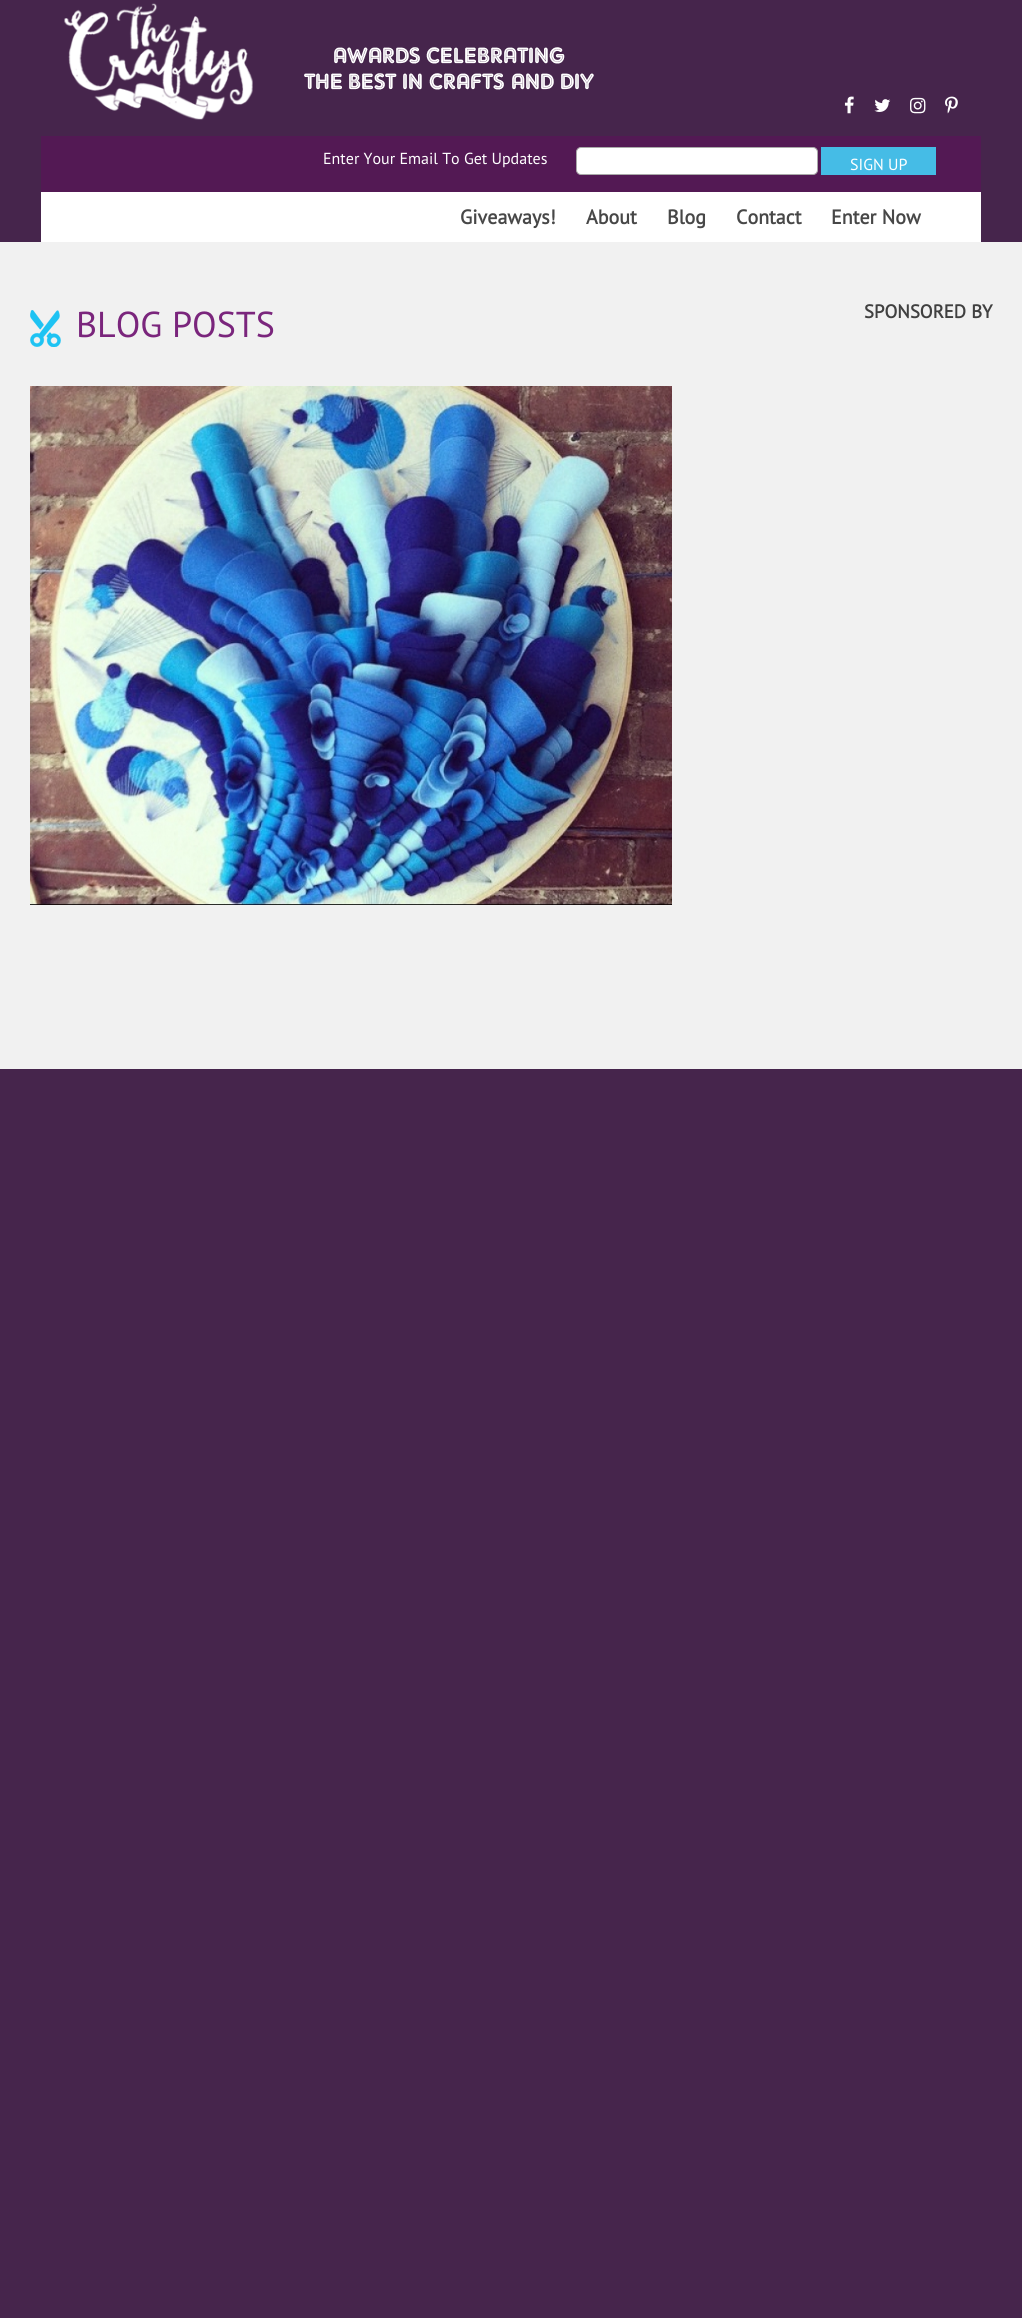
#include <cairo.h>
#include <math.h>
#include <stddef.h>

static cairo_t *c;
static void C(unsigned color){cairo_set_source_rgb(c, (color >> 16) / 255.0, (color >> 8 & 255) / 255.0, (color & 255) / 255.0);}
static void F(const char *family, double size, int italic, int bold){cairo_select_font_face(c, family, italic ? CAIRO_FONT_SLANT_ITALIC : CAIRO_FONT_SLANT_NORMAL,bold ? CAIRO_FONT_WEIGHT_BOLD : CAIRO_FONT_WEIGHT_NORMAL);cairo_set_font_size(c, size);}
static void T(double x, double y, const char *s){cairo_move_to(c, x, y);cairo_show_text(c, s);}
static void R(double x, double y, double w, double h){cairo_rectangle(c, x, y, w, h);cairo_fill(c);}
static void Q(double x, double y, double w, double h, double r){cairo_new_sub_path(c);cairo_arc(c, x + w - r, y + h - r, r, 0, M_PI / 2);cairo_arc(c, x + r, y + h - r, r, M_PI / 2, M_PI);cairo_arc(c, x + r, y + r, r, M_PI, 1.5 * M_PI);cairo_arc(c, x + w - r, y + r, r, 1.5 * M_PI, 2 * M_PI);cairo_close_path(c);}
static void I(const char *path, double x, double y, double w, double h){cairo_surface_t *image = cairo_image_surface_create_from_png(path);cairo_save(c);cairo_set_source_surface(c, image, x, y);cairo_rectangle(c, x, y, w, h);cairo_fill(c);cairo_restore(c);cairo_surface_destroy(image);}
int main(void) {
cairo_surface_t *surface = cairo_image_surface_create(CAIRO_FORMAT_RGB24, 1022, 2318);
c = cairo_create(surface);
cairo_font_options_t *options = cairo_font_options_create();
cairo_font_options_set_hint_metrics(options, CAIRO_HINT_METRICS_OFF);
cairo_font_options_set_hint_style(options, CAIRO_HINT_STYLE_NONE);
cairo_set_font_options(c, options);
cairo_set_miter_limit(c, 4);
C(0x46254c);
cairo_paint(c);
I("1.png",64,3,189,117);
I("2.png",304,47,290,43);
I("3.png",844,96,10,18);
I("4.png",874,99,17,13);
I("5.png",910,97,16,17);
I("6.png",945,96,13,18);
C(0x531954);
R(41,136,940,56);
F("PT Sans",16,0,0);
C(0xffffff);
T(323,164,"Enter Your Email To Get Updates");
Q(576.5,147.5,241,27,4.5);
cairo_fill_preserve(c);
C(0xa9a9a9);
cairo_set_line_width(c,1);
cairo_stroke(c);
C(0x45bce6);
R(821,147,115,28);
C(0xffffff);
T(850,170,"SIGN UP");
R(41,192,940,50);
F("PT Sans",20,0,1);
C(0x474747);
T(460,224,"Giveaways!");
T(586,224,"About");
T(667,224,"Blog");
T(736,224,"Contact");
T(831,224,"Enter Now");
C(0xf1f1f1);
R(0,242,1022,827);
I("7.png",30,310,31,37);
F("PT Sans",36,0,0);
C(0x7a257c);
T(76,337,"BLOG POSTS");
F("PT Sans",18.75,0,1);
C(0x404040);
T(864,318,"SPONSORED BY");
I("8.png",30,386,642,519);
cairo_surface_write_to_png(surface, "o.png");
cairo_font_options_destroy(options);
cairo_destroy(c);
cairo_surface_destroy(surface);
return 0;
}
